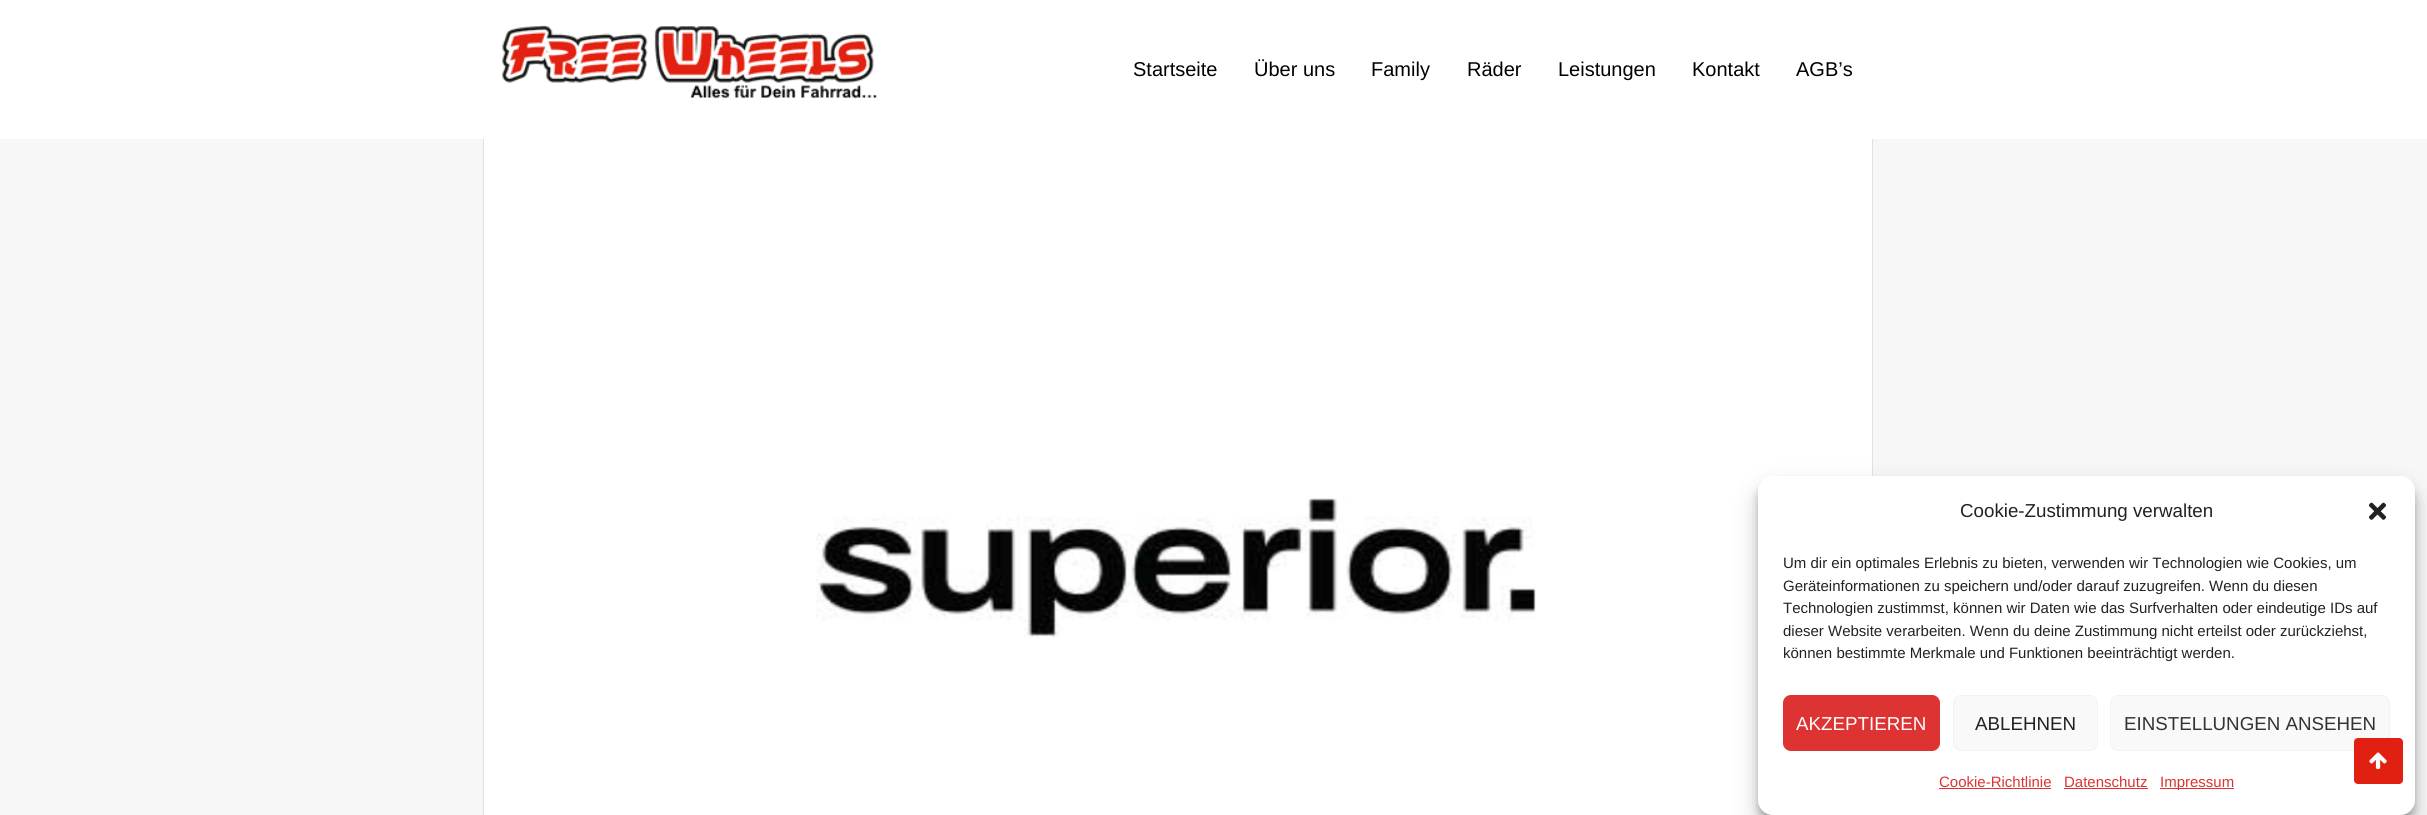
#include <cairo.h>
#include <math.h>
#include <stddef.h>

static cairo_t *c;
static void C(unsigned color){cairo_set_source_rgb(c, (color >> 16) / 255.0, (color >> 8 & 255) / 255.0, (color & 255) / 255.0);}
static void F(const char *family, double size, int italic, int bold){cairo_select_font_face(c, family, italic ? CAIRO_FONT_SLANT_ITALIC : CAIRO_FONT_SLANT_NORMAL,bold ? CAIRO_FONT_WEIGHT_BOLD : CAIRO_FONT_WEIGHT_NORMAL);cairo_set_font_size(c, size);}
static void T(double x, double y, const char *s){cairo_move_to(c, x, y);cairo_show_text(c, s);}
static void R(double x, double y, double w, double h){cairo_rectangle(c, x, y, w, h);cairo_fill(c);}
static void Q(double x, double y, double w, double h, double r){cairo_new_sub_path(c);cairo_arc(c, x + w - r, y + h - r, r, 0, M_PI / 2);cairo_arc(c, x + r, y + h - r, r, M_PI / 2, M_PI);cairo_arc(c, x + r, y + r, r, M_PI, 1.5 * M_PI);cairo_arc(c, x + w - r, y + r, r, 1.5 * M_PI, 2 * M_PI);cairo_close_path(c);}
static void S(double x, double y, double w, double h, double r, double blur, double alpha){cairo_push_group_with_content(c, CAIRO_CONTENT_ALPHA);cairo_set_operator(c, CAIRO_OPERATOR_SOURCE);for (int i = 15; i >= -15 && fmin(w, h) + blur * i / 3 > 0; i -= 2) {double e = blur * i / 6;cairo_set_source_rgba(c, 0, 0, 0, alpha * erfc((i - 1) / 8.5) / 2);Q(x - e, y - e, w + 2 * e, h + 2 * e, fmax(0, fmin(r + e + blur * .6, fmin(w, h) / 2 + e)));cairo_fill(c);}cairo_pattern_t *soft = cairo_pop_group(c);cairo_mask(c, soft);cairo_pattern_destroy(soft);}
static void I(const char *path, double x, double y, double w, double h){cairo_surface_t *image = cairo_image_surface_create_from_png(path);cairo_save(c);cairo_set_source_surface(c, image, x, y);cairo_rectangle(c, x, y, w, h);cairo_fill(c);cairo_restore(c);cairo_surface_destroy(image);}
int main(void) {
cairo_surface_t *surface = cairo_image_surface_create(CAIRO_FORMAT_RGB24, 2427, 815);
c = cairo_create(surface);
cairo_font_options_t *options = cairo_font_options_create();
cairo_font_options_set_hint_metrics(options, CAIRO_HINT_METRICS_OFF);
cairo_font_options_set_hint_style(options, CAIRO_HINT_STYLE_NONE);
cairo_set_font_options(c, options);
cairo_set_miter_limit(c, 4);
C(0xf7f7f7);
cairo_paint(c);
C(0xffffff);
R(484,139,1388,676);
cairo_rectangle(c,483.5,-.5,1389,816);
C(0xe1e1e1);
cairo_set_line_width(c,1);
cairo_stroke(c);
I("1.png",816,498,720,140);
C(0xffffff);
R(0,0,2427,139);
I("2.png",502,25,375,74);
F("Liberation Sans",20,0,0);
C(0x000000);
T(1133,76,"Startseite");
T(1254,76,"Über uns");
T(1371,76,"Family");
T(1467,76,"Räder");
T(1558,76,"Leistungen");
T(1692,76,"Kontakt");
T(1796,76,"AGB’s");
C(0x000000);
S(1758,484,657,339,15,4,.23);
S(1758,489,657,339,15,12.5,.19);
C(0xffffff);
Q(1758,476,657,339,15);
cairo_fill(c);
F("Liberation Sans",18.75,0,0);
C(0x222222);
T(1960,517,"Cookie-Zustimmung verwalten");
I("3.png",2368,502,19,18);
F("Liberation Sans",15,0,0);
T(1783,568,"Um dir ein optimales Erlebnis zu bieten, verwenden wir Technologien wie Cookies, um");
T(1783,591,"Geräteinformationen zu speichern und/oder darauf zuzugreifen. Wenn du diesen");
T(1783,613,"Technologien zustimmst, können wir Daten wie das Surfverhalten oder eindeutige IDs auf");
T(1783,636,"dieser Website verarbeiten. Wenn du deine Zustimmung nicht erteilst oder zurückziehst,");
T(1783,658,"können bestimmte Merkmale und Funktionen beeinträchtigt werden.");
C(0xdd3333);
Q(1783.5,695.5,156,55,7.5);
cairo_fill_preserve(c);
cairo_stroke(c);
F("Liberation Sans",18.75,0,0);
C(0xffffff);
T(1796,730,"AKZEPTIEREN");
C(0xf9f9f9);
Q(1953.5,695.5,144,55,7.5);
cairo_fill_preserve(c);
C(0xf2f2f2);
cairo_stroke(c);
C(0x222222);
T(1975,730,"ABLEHNEN");
C(0xf9f9f9);
Q(2110.5,695.5,279,55,7.5);
cairo_fill_preserve(c);
C(0xf2f2f2);
cairo_stroke(c);
C(0x333333);
T(2124,730,"EINSTELLUNGEN ANSEHEN");
F("Liberation Sans",15,0,0);
C(0xdd3333);
T(1939,787,"Cookie-Richtlinie");
R(1939,788,112,1);
T(2064,787,"Datenschutz");
R(2064,788,84,1);
R(2160,788,74,1);
T(2160,787,"Impressum");
C(0xe22011);
Q(2354,738,49,46,4);
cairo_fill(c);
I("4.png",2369,752,18,17);
cairo_surface_write_to_png(surface, "o.png");
cairo_font_options_destroy(options);
cairo_destroy(c);
cairo_surface_destroy(surface);
return 0;
}
